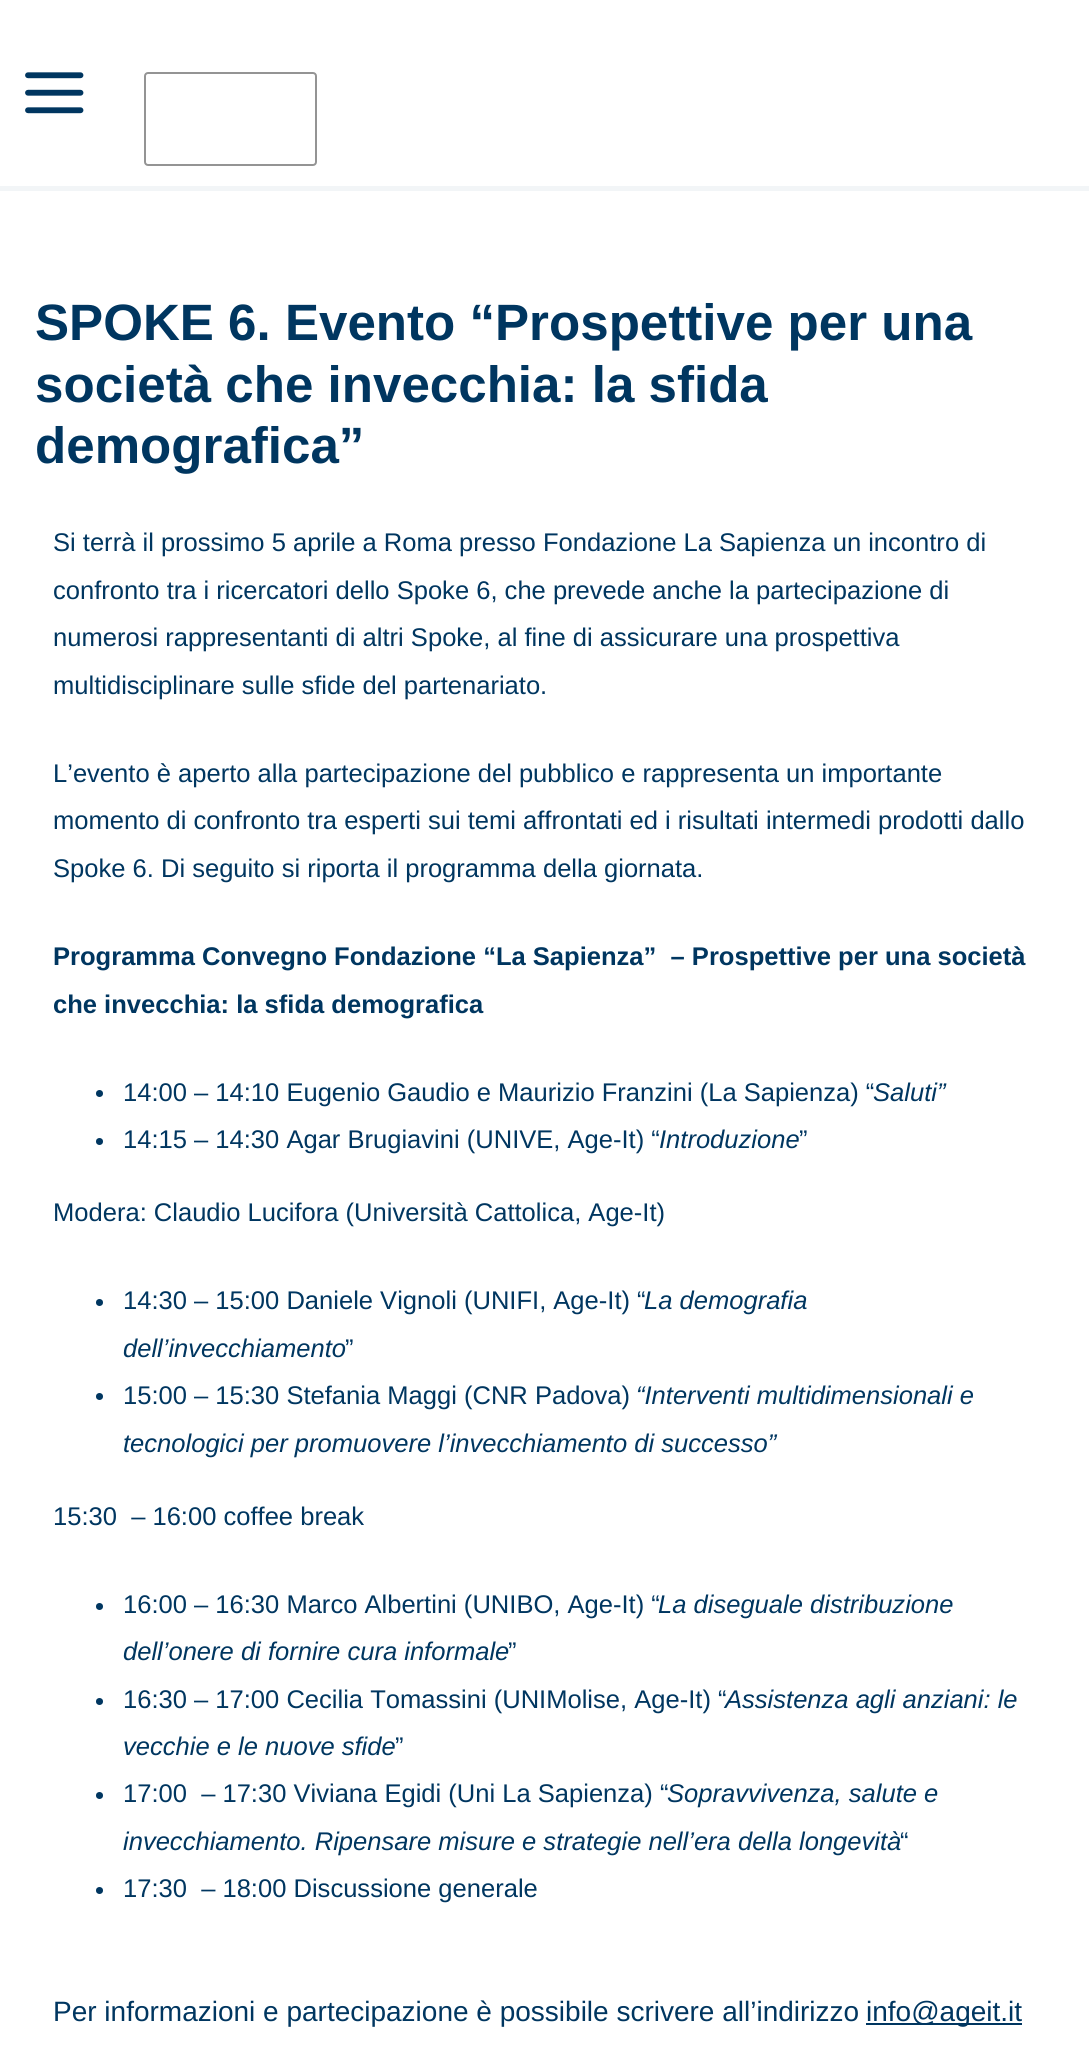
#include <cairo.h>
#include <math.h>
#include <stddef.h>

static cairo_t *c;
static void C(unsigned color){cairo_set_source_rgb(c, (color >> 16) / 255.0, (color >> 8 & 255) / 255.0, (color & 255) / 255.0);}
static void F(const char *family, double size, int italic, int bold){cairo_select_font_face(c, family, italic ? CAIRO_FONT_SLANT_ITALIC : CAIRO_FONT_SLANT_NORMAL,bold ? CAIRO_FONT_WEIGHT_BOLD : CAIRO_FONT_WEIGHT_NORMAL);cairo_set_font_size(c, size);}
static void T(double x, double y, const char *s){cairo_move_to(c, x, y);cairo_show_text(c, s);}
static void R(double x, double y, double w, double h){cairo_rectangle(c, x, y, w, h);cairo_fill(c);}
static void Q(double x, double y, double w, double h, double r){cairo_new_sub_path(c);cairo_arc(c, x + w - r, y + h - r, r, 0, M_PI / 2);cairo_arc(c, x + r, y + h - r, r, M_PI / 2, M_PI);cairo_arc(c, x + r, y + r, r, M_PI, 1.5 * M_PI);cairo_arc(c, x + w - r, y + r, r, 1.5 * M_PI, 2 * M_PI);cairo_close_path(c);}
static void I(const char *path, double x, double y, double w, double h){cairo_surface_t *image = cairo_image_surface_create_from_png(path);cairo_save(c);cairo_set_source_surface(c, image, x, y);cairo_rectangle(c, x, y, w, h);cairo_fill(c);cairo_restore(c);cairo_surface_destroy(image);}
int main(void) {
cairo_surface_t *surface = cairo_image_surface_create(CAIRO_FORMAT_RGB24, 1089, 2055);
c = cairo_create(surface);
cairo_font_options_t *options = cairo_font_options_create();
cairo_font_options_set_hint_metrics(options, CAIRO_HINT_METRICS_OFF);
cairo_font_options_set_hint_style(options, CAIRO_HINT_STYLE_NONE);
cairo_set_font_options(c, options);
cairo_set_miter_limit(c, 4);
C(0xffffff);
cairo_paint(c);
C(0xf2f5f7);
R(0,186,1089,5);
I("1.png",25,72,59,42);
Q(145,73,171,92,3);
C(0x949494);
cairo_stroke(c);
F("Liberation Sans",51.1,0,1);
C(0x003660);
T(35,340,"SPOKE 6. Evento “Prospettive per una");
T(35,402,"società che invecchia: la sfida");
T(35,463,"demografica”");
F("Liberation Sans",25.55,0,0);
T(53,551,"Si terrà il prossimo 5 aprile a Roma presso Fondazione La Sapienza un incontro di");
T(53,599,"confronto tra i ricercatori dello Spoke 6, che prevede anche la partecipazione di");
T(53,646,"numerosi rappresentanti di altri Spoke, al fine di assicurare una prospettiva");
T(53,694,"multidisciplinare sulle sfide del partenariato.");
T(53,782,"L’evento è aperto alla partecipazione del pubblico e rappresenta un importante");
T(53,829,"momento di confronto tra esperti sui temi affrontati ed i risultati intermedi prodotti dallo");
T(53,877,"Spoke 6. Di seguito si riporta il programma della giornata.");
F("Liberation Sans",25.55,0,1);
T(53,965,"Programma Convegno Fondazione “La Sapienza”  – Prospettive per una società");
T(53,1013,"che invecchia: la sfida demografica");
cairo_new_path(c);
cairo_arc(c,99.5,1093.5,3.5,0,2 * M_PI);
cairo_fill(c);
F("Liberation Sans",25.55,0,0);
T(123,1101,"14:00 – 14:10 Eugenio Gaudio e Maurizio Franzini (La Sapienza) “");
F("Liberation Sans",25.55,1,0);
T(873,1101,"Saluti”");
F("Liberation Sans",25.55,0,0);
T(123,1148,"14:15 – 14:30 Agar Brugiavini (UNIVE, Age-It) “");
F("Liberation Sans",25.55,1,0);
T(659,1148,"Introduzione");
F("Liberation Sans",25.55,0,0);
T(799,1148,"”");
cairo_new_path(c);
cairo_arc(c,99.5,1141.5,3.5,0,2 * M_PI);
cairo_fill(c);
T(53,1221,"Modera: Claudio Lucifora (Università Cattolica, Age-It)");
cairo_new_path(c);
cairo_arc(c,99.5,1302.5,3.5,0,2 * M_PI);
cairo_fill(c);
T(123,1309,"14:30 – 15:00 Daniele Vignoli (UNIFI, Age-It) “");
F("Liberation Sans",25.55,1,0);
T(644,1309,"La demografia");
T(123,1357,"dell’invecchiamento");
F("Liberation Sans",25.55,0,0);
T(345,1357,"”");
cairo_new_path(c);
cairo_arc(c,99.5,1396.5,3.5,0,2 * M_PI);
cairo_fill(c);
T(123,1404,"15:00 – 15:30 Stefania Maggi (CNR Padova)");
F("Liberation Sans",25.55,1,0);
T(636,1404,"“Interventi multidimensionali e");
T(123,1452,"tecnologici per promuovere l’invecchiamento di successo”");
F("Liberation Sans",25.55,0,0);
T(53,1525,"15:30  – 16:00 coffee break");
cairo_new_path(c);
cairo_arc(c,99.5,1606.5,3.5,0,2 * M_PI);
cairo_fill(c);
T(123,1613,"16:00 – 16:30 Marco Albertini (UNIBO, Age-It) “");
F("Liberation Sans",25.55,1,0);
T(658,1613,"La diseguale distribuzione");
T(123,1660,"dell’onere di fornire cura informale");
F("Liberation Sans",25.55,0,0);
T(508,1660,"”");
cairo_new_path(c);
cairo_arc(c,99.5,1701.5,3.5,0,2 * M_PI);
cairo_fill(c);
T(123,1708,"16:30 – 17:00 Cecilia Tomassini (UNIMolise, Age-It) “");
F("Liberation Sans",25.55,1,0);
T(725,1708,"Assistenza agli anziani: le");
T(123,1755,"vecchie e le nuove sfide");
F("Liberation Sans",25.55,0,0);
T(395,1755,"”");
cairo_new_path(c);
cairo_arc(c,99.5,1795.5,3.5,0,2 * M_PI);
cairo_fill(c);
T(123,1802,"17:00  – 17:30 Viviana Egidi (Uni La Sapienza) “");
F("Liberation Sans",25.55,1,0);
T(667,1802,"Sopravvivenza, salute e");
T(123,1850,"invecchiamento. Ripensare misure e strategie nell’era della longevità");
F("Liberation Sans",25.55,0,0);
T(900,1850,"“");
cairo_new_path(c);
cairo_arc(c,99.5,1890.5,3.5,0,2 * M_PI);
cairo_fill(c);
T(123,1897,"17:30  – 18:00 Discussione generale");
F("Liberation Sans",28,0,0);
T(53,2021,"Per informazioni e partecipazione è possibile scrivere all’indirizzo");
R(866,2023,156,2);
T(866,2021,"info@ageit.it");
cairo_surface_write_to_png(surface, "o.png");
cairo_font_options_destroy(options);
cairo_destroy(c);
cairo_surface_destroy(surface);
return 0;
}
